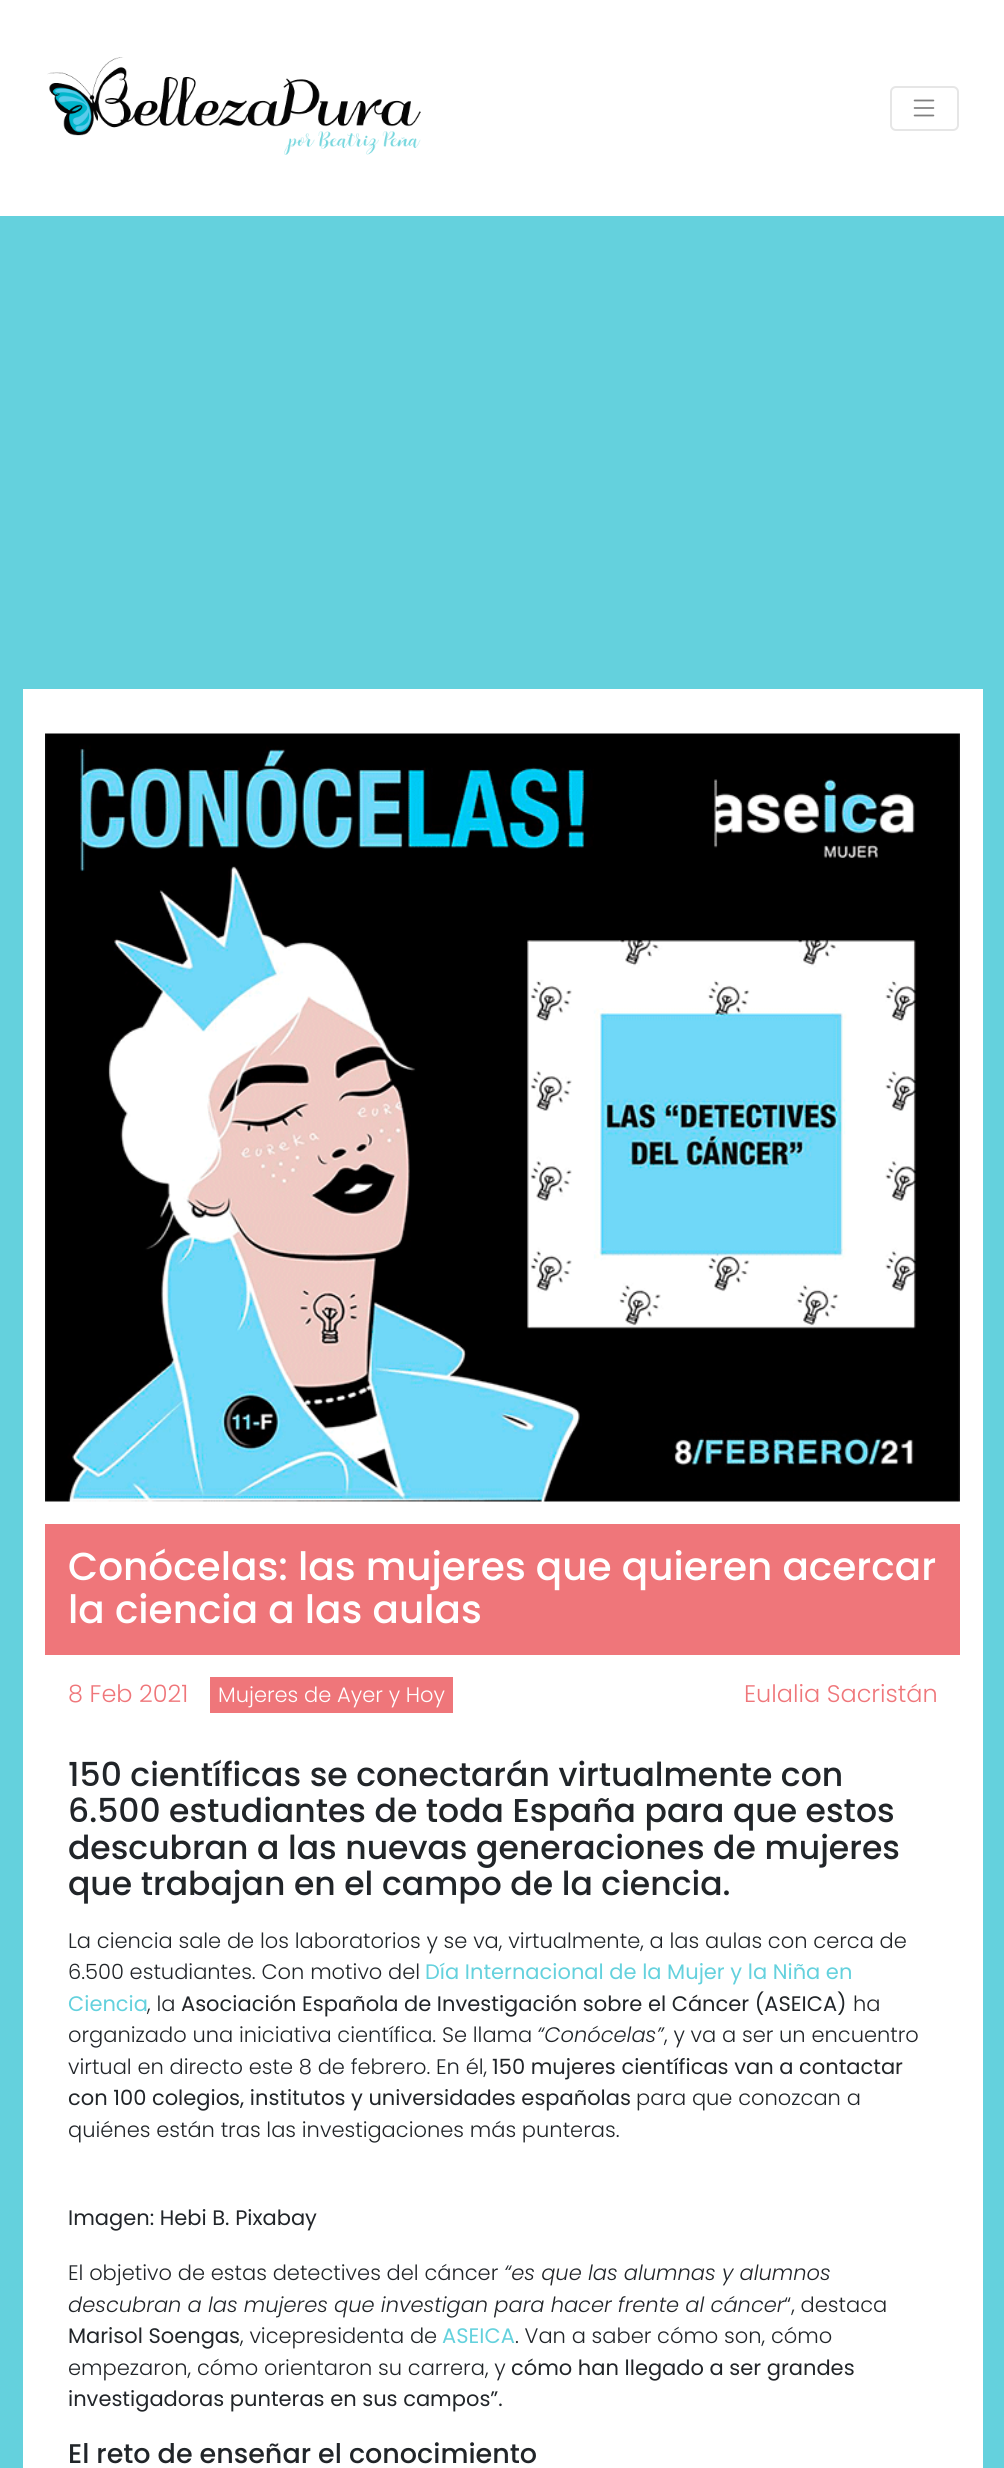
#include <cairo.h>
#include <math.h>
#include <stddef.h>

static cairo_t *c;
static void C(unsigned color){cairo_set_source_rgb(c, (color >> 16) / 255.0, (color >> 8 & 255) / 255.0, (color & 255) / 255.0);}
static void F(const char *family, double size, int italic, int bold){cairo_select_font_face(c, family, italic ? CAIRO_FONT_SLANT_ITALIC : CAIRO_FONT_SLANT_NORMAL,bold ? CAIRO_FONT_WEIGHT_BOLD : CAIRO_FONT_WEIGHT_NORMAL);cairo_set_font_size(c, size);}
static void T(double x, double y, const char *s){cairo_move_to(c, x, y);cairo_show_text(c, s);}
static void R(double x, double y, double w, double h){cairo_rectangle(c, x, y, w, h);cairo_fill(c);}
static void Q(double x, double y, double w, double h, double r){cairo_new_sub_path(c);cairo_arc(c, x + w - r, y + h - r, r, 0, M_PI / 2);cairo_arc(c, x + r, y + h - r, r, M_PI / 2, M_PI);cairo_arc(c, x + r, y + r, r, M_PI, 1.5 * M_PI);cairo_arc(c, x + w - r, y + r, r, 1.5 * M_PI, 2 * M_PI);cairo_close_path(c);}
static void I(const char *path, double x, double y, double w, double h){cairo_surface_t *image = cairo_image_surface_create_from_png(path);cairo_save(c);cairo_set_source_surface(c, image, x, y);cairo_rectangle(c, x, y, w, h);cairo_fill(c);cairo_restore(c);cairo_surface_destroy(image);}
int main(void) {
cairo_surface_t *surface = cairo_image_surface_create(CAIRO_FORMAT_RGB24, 1004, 2468);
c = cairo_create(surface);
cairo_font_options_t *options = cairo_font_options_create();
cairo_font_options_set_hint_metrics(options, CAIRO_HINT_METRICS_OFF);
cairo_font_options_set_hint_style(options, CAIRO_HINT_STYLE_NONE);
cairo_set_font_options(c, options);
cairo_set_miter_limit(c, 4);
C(0x64d1dd);
cairo_paint(c);
C(0xffffff);
R(0,0,1004,216);
I("1.png",47,57,374,98);
Q(891,87,67,43,5);
C(0xe6e6e6);
cairo_stroke(c);
I("2.png",913,99,22,18);
C(0xffffff);
R(23,689,960,1779);
I("3.png",45,733,915,769);
C(0xef767a);
R(45,1524,915,131);
F("Poppins Medium",39,0,0);
C(0xffffff);
T(68,1580,"Conócelas: las mujeres que quieren acercar");
T(68,1623,"la ciencia a las aulas");
F("Poppins Light",24,0,0);
C(0xef767a);
T(68,1702,"8 Feb 2021");
R(210,1677,243,36);
F("Poppins Light",21,0,0);
C(0xffffff);
T(218,1702,"Mujeres de Ayer y Hoy");
F("Poppins Light",24,0,0);
C(0xef767a);
T(744,1702,"Eulalia Sacristán");
F("Poppins Medium",33,0,0);
C(0x212529);
T(68,1786,"150 científicas se conectarán virtualmente con");
T(68,1822,"6.500 estudiantes de toda España para que estos");
T(68,1859,"descubran a las nuevas generaciones de mujeres");
T(68,1895,"que trabajan en el campo de la ciencia.");
F("Poppins Light",21,0,0);
T(68,1948,"La ciencia sale de los laboratorios y se va, virtualmente, a las aulas con cerca de");
T(68,1979,"6.500 estudiantes. Con motivo del");
F("Poppins",21,0,0);
C(0x64d1dd);
T(425,1979,"Día Internacional de la Mujer y la Niña en");
T(68,2011,"Ciencia");
F("Poppins Light",21,0,0);
C(0x212529);
T(147,2011,", la");
F("Poppins",21,0,0);
T(181,2011,"Asociación Española de Investigación sobre el Cáncer (ASEICA)");
F("Poppins Light",21,0,0);
T(853,2011,"ha");
T(68,2042,"organizado una iniciativa científica. Se llama");
F("Poppins Light",21,1,0);
T(537,2042,"“Conócelas”");
F("Poppins Light",21,0,0);
T(664,2042,", y va a ser un encuentro");
T(68,2074,"virtual en directo este 8 de febrero. En él,");
F("Poppins",21,0,0);
T(492,2074,"150 mujeres científicas van a contactar");
T(68,2105,"con 100 colegios, institutos y universidades españolas");
F("Poppins Light",21,0,0);
T(636,2105,"para que conozcan a");
T(68,2137,"quiénes están tras las investigaciones más punteras.");
F("Poppins",21,0,0);
T(68,2225,"Imagen: Hebi B. Pixabay");
F("Poppins Light",21,0,0);
T(68,2280,"El objetivo de estas detectives del cáncer");
F("Poppins Light",21,1,0);
T(504,2280,"“es que las alumnas y alumnos");
T(68,2312,"descubran a las mujeres que investigan para hacer frente al cáncer");
F("Poppins Light",21,0,0);
T(784,2312,"“, destaca");
F("Poppins",21,0,0);
T(68,2343,"Marisol Soengas");
F("Poppins Light",21,0,0);
T(240,2343,", vicepresidenta de");
F("Poppins",21,0,0);
C(0x64d1dd);
T(442,2343,"ASEICA");
F("Poppins Light",21,0,0);
C(0x212529);
T(515,2343,". Van a saber cómo son, cómo");
T(68,2375,"empezaron, cómo orientaron su carrera, y");
F("Poppins",21,0,0);
T(511,2375,"cómo han llegado a ser grandes");
T(68,2406,"investigadoras punteras en sus campos”.");
F("Poppins Medium",27,0,0);
T(68,2463,"El reto de enseñar el conocimiento");
cairo_surface_write_to_png(surface, "o.png");
cairo_font_options_destroy(options);
cairo_destroy(c);
cairo_surface_destroy(surface);
return 0;
}
